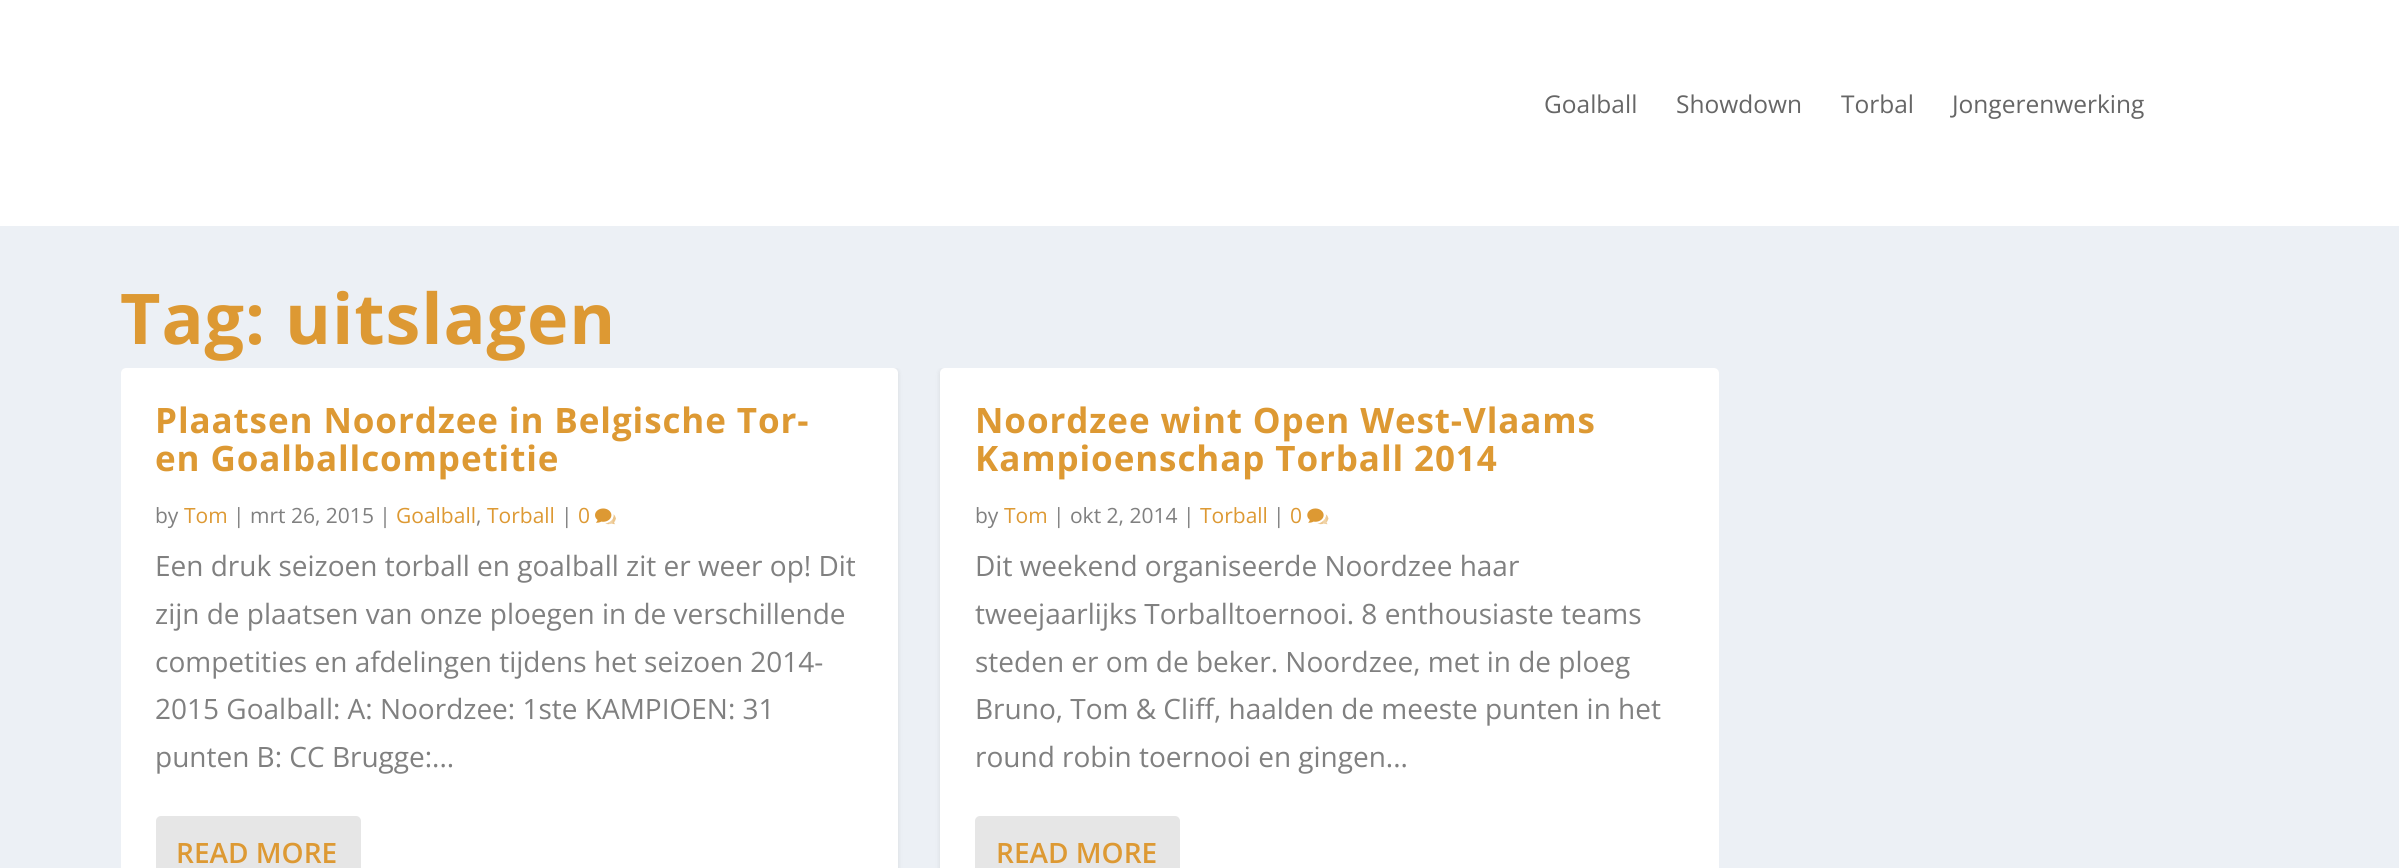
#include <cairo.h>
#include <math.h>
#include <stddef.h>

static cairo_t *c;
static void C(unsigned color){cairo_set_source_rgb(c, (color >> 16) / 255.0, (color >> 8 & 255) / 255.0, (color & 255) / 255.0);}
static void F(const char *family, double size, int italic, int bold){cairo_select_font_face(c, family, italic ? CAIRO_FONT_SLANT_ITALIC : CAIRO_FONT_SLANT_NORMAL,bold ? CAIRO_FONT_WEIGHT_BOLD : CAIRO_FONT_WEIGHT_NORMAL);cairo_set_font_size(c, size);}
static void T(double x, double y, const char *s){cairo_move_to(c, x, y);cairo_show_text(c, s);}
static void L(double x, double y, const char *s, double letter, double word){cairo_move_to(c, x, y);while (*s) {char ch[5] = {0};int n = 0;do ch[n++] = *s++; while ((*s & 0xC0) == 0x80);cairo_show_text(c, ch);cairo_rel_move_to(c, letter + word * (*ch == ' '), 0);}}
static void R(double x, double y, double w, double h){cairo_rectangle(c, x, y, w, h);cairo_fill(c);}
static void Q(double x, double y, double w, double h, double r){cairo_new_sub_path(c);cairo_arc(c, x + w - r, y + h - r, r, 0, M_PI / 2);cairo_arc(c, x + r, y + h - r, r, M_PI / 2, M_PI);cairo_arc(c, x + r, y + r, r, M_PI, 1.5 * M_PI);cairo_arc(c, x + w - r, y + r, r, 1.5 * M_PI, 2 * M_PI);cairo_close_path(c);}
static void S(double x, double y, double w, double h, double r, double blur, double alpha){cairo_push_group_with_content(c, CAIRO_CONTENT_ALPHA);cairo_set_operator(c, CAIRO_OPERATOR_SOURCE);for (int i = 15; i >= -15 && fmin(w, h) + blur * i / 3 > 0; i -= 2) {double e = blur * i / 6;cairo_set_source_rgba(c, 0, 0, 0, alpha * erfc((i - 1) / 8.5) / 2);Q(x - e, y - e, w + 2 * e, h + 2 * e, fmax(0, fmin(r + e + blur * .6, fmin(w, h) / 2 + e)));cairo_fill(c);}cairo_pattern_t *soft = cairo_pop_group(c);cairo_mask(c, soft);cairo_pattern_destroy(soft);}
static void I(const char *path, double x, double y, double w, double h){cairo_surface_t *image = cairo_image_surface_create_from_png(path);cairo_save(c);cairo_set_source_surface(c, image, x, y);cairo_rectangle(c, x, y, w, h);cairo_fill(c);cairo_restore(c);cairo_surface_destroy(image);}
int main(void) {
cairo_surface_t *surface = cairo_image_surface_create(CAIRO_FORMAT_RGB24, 2399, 868);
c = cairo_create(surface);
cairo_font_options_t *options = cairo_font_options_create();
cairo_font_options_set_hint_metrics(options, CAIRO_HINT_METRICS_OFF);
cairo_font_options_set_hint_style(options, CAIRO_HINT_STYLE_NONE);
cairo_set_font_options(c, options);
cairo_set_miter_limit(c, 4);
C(0xecf0f5);
cairo_paint(c);
C(0xffffff);
R(0,0,2399,226);
F("Open Sans",24.5,0,0);
C(0x666666);
T(1544,113,"Goalball");
T(1676,113,"Showdown");
T(1841,113,"Torbal");
T(1952,113,"Jongerenwerking");
F("Open Sans",70,0,1);
C(0xdd9933);
L(120,344,"Tag: uitslagen",.9,0);
cairo_save(c);
Q(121,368,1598,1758,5);
cairo_clip(c);
C(0x000000);
S(121,369,777,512,5,2.5,.1);
cairo_restore(c);
C(0xffffff);
Q(121,368,777,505,5);
cairo_fill(c);
F("Open Sans",35,0,1);
C(0xdd9933);
L(155,433,"Plaatsen Noordzee in Belgische Tor-",.9,0);
L(155,471,"en Goalballcompetitie",.9,0);
F("Open Sans",21,0,0);
C(0x808080);
T(155,523,"by");
C(0xdd9933);
T(184,523,"Tom");
C(0x808080);
T(233,523,"| mrt 26, 2015 |");
C(0xdd9933);
T(396,523,"Goalball");
C(0x808080);
T(476,523,",");
C(0xdd9933);
T(487,523,"Torball");
C(0x808080);
T(561,523,"|");
C(0xdd9933);
T(578,523,"0");
I("1.png",595,508,21,17);
F("Open Sans",28,0,0);
C(0x808080);
T(155,576,"Een druk seizoen torball en goalball zit er weer op! Dit");
T(155,624,"zijn de plaatsen van onze ploegen in de verschillende");
T(155,672,"competities en afdelingen tijdens het seizoen 2014-");
T(155,719,"2015 Goalball: A: Noordzee: 1ste KAMPIOEN: 31");
T(155,767,"punten B: CC Brugge:...");
C(0xe6e6e6);
Q(156,816,205,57,5);
cairo_fill(c);
F("Open Sans SemiBold",28,0,0);
C(0xdd9933);
T(176,863,"READ MORE");
cairo_save(c);
Q(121,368,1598,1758,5);
cairo_clip(c);
C(0x000000);
S(940,369,779,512,5,2.5,.1);
cairo_restore(c);
C(0xffffff);
Q(940,368,779,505,5);
cairo_fill(c);
F("Open Sans",35,0,1);
C(0xdd9933);
L(975,433,"Noordzee wint Open West-Vlaams",.9,0);
L(975,471,"Kampioenschap Torball 2014",.9,0);
F("Open Sans",21,0,0);
C(0x808080);
T(975,523,"by");
C(0xdd9933);
T(1004,523,"Tom");
C(0x808080);
T(1053,523,"| okt 2, 2014 |");
C(0xdd9933);
T(1200,523,"Torball");
C(0x808080);
T(1273,523,"|");
C(0xdd9933);
T(1290,523,"0");
I("2.png",1307,508,22,17);
F("Open Sans",28,0,0);
C(0x808080);
T(975,576,"Dit weekend organiseerde Noordzee haar");
T(975,624,"tweejaarlijks Torballtoernooi. 8 enthousiaste teams");
T(975,672,"steden er om de beker. Noordzee, met in de ploeg");
T(975,719,"Bruno, Tom & Cliff, haalden de meeste punten in het");
T(975,767,"round robin toernooi en gingen...");
C(0xe6e6e6);
Q(975,816,205,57,5);
cairo_fill(c);
F("Open Sans SemiBold",28,0,0);
C(0xdd9933);
T(996,863,"READ MORE");
cairo_surface_write_to_png(surface, "o.png");
cairo_font_options_destroy(options);
cairo_destroy(c);
cairo_surface_destroy(surface);
return 0;
}
